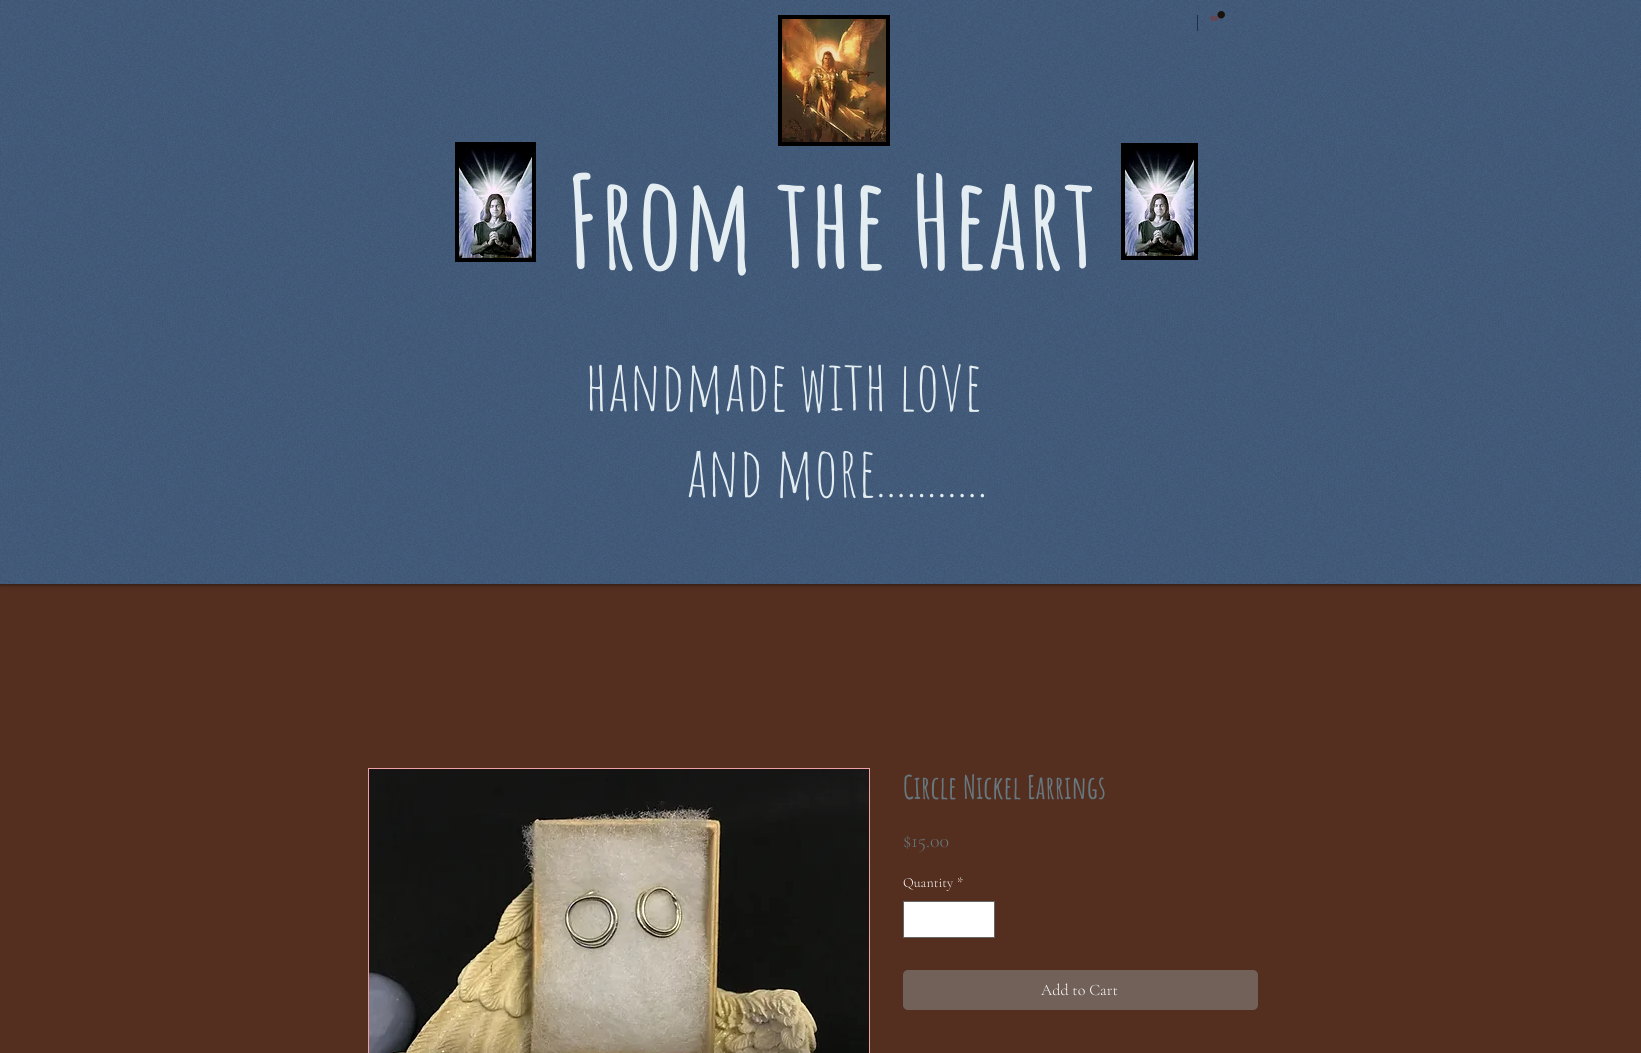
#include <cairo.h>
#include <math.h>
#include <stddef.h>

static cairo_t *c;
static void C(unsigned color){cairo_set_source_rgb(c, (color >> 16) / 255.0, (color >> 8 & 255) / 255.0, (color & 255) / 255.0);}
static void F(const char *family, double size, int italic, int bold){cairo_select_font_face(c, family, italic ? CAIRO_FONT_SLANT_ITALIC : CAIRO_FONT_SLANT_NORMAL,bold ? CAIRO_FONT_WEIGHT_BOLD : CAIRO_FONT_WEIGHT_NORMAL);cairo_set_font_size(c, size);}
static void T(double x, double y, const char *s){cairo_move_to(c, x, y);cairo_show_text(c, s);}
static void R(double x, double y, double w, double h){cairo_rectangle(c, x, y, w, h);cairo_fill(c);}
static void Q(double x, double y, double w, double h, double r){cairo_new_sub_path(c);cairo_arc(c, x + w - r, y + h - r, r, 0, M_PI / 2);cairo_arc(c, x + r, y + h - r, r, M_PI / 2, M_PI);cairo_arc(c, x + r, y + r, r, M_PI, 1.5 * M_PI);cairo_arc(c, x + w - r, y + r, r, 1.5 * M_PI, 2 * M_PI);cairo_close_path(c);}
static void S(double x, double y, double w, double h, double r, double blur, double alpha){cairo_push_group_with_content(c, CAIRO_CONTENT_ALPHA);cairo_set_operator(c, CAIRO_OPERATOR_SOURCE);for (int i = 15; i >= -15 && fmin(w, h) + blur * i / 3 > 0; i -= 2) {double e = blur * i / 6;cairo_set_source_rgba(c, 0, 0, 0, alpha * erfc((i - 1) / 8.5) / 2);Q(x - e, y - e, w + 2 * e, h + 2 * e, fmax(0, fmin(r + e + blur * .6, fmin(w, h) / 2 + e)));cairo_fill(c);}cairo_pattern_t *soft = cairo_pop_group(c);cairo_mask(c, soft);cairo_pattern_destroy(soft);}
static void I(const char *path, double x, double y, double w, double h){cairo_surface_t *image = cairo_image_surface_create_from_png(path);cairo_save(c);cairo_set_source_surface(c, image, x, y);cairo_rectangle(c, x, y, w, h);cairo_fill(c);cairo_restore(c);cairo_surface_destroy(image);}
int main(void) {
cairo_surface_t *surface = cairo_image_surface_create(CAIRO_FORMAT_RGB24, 1641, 1053);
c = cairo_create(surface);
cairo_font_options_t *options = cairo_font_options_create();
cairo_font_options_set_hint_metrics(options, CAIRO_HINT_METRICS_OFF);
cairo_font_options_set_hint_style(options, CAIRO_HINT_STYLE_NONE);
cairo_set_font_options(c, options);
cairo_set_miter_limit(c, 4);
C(0x542f20);
cairo_paint(c);
C(0x000000);
S(0,0,1641,584,0,2.5,.7);
C(0x425b7b);
R(0,0,1641,584);
I("1.png",0,0,1641,584);
C(0x000000);
R(778,15,112,131);
I("2.png",782,19,104,123);
C(0x1c3142);
R(1197,15,1,16);
I("3.png",1210,11,15,10);
C(0x000000);
R(455,142,81,120);
I("4.png",459,149,73,109);
F("Amatic SC",127,0,1);
C(0xe4eef2);
T(566,269,"From the Heart");
F("Amatic SC",69,0,0);
T(585,411,"handmade with love");
T(686,497,"and more...........");
C(0x000000);
R(1121,143,77,117);
I("5.png",1125,149,69,107);
cairo_rectangle(c,368.5,768.5,501,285);
C(0xf0a0a4);
cairo_set_line_width(c,1);
cairo_stroke(c);
I("6.png",369,769,500,284);
F("Amatic SC",32,0,1);
C(0x677880);
T(903,799,"Circle Nickel Earrings");
F("Cormorant Garamond Light",20,0,0);
T(903,847,"$15.00");
F("Cormorant Garamond Light",14,0,0);
C(0xffffff);
T(903,887,"Quantity");
T(957,887,"*");
cairo_rectangle(c,903.5,901.5,91,36);
cairo_fill_preserve(c);
C(0x666666);
cairo_stroke(c);
C(0x716159);
Q(903,970,355,40,5);
cairo_fill(c);
F("Cormorant Garamond Light",16,0,0);
C(0xffffff);
T(1041,995,"Add to Cart");
cairo_surface_write_to_png(surface, "o.png");
cairo_font_options_destroy(options);
cairo_destroy(c);
cairo_surface_destroy(surface);
return 0;
}
